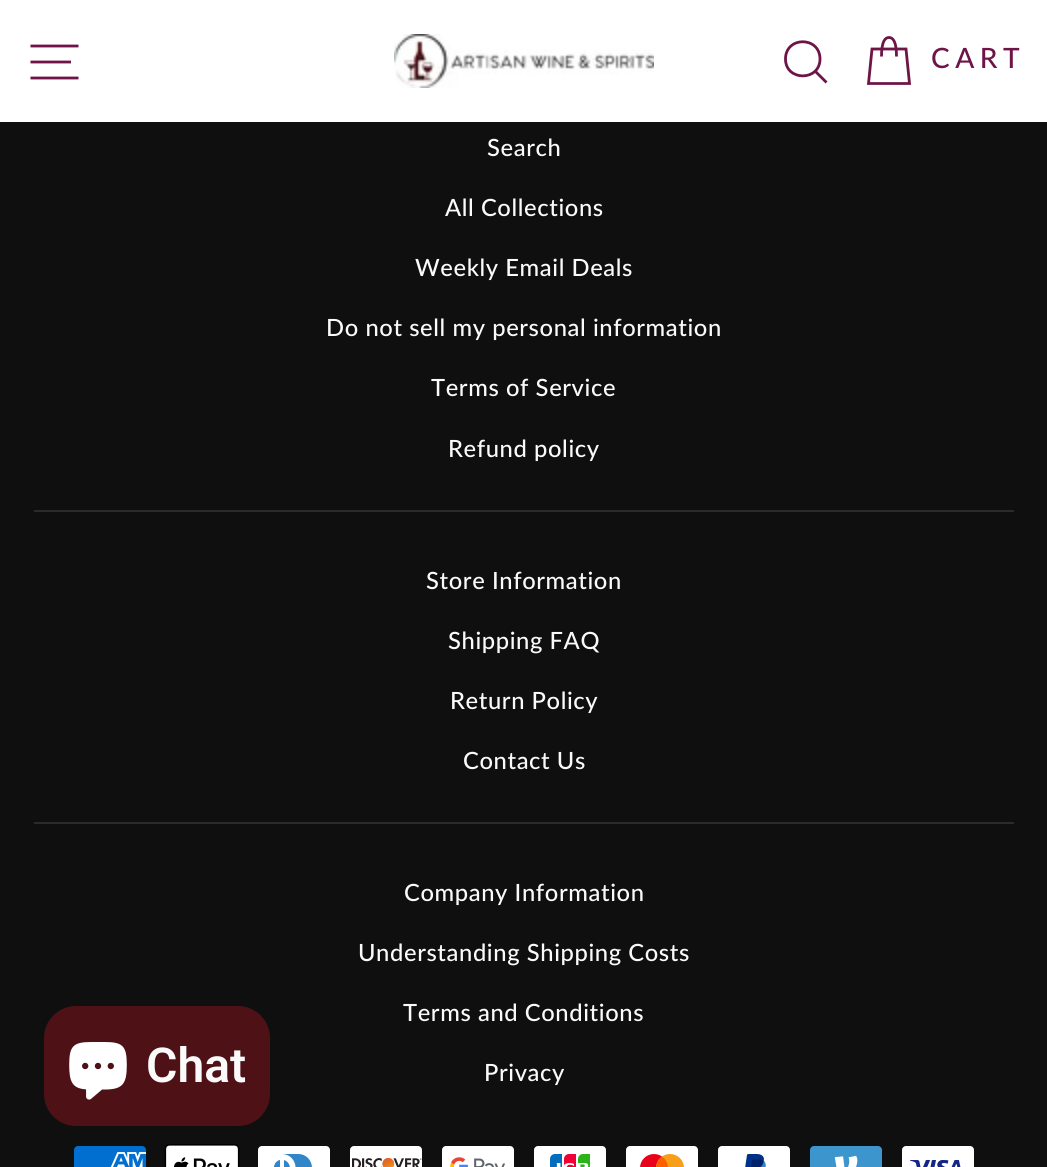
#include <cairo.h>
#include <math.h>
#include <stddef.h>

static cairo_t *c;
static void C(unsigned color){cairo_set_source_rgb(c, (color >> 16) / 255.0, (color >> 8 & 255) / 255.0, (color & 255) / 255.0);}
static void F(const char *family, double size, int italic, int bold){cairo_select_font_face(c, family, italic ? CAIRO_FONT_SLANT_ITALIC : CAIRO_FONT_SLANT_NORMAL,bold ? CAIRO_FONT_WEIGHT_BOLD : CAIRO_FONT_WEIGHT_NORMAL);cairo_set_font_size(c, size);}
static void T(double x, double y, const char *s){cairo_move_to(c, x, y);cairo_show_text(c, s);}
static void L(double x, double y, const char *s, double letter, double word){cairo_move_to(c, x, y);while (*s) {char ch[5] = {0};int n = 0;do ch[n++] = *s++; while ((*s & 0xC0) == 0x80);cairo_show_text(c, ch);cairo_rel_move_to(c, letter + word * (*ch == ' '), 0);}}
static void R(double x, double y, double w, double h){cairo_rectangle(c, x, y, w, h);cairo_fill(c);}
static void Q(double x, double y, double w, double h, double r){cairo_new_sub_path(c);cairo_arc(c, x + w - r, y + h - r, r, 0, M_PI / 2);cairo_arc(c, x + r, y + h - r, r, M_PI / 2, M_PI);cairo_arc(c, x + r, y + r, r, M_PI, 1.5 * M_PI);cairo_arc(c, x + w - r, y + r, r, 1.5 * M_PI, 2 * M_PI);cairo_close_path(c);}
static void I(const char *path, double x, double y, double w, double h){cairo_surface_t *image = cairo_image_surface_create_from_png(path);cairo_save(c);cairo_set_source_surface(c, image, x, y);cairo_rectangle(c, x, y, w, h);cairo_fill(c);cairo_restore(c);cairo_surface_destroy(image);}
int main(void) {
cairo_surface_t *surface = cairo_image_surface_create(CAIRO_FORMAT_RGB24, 1047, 1167);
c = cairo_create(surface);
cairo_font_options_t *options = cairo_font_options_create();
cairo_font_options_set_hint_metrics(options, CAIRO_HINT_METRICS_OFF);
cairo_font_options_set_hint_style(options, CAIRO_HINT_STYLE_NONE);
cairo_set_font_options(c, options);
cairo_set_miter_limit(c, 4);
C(0x0f0f0f);
cairo_paint(c);
C(0xffffff);
R(0,0,1047,122);
cairo_new_path(c);
cairo_move_to(c,30.5,46);
cairo_line_to(c,78.5,46);
cairo_move_to(c,30.5,62);
cairo_line_to(c,71,62);
cairo_move_to(c,30.5,78);
cairo_line_to(c,78.5,78);
C(0x6e1446);
cairo_set_line_width(c,2.8);
cairo_stroke(c);
I("1.png",394,34,260,54);
cairo_new_path(c);
cairo_move_to(c,820,59);
cairo_curve_to(c,820,81.5,785.5,81.5,785.5,59);
cairo_curve_to(c,785.5,36,820,36,820,59);
cairo_close_path(c);
cairo_move_to(c,826.5,82.5);
cairo_line_to(c,815.5,71.5);
cairo_stroke(c);
cairo_new_path(c);
cairo_move_to(c,881.5,56.5);
cairo_curve_to(c,881.5,41.5,885,37.5,889,37.5);
cairo_curve_to(c,893,37.5,896.5,41.5,896.5,56.5);
cairo_move_to(c,872,49);
cairo_line_to(c,906,49);
cairo_line_to(c,909.5,83.5);
cairo_line_to(c,868.5,83.5);
cairo_close_path(c);
cairo_stroke(c);
F("Lato Medium",28,0,0);
L(931,68,"CART",5.5,0);
C(0x4d1116);
Q(44,1006,226,120,32);
cairo_fill(c);
I("2.png",69,1042,58,58);
F("Roboto SemiBold",48,0,0);
C(0xfafafa);
T(146,1082,"Chat");
F("Lato Medium",23.75,0,0);
L(487,156,"Search",.6,0);
L(445,216,"All Collections",.6,0);
L(415,276,"Weekly Email Deals",.6,0);
L(326,336,"Do not sell my personal information",.6,0);
L(431,396,"Terms of Service",.6,0);
L(448,457,"Refund policy",.6,0);
C(0x2b2b2b);
R(34,510,980,2);
C(0xfafafa);
L(426,589,"Store Information",.6,0);
L(448,649,"Shipping FAQ",.6,0);
L(450,709,"Return Policy",.6,0);
L(463,769,"Contact Us",.6,0);
C(0x2b2b2b);
R(34,822,980,2);
C(0xfafafa);
L(404,901,"Company Information",.6,0);
L(358,961,"Understanding Shipping Costs",.6,0);
L(403,1021,"Terms and Conditions",.6,0);
L(484,1081,"Privacy",.6,0);
I("3.png",74,1146,72,21);
I("4.png",164,1144,76,23);
I("5.png",258,1146,72,21);
I("6.png",350,1146,72,21);
I("7.png",442,1146,72,21);
I("8.png",534,1146,72,21);
I("9.png",626,1146,72,21);
I("10.png",718,1146,72,21);
I("11.png",810,1146,72,21);
I("12.png",902,1146,72,21);
cairo_surface_write_to_png(surface, "o.png");
cairo_font_options_destroy(options);
cairo_destroy(c);
cairo_surface_destroy(surface);
return 0;
}
